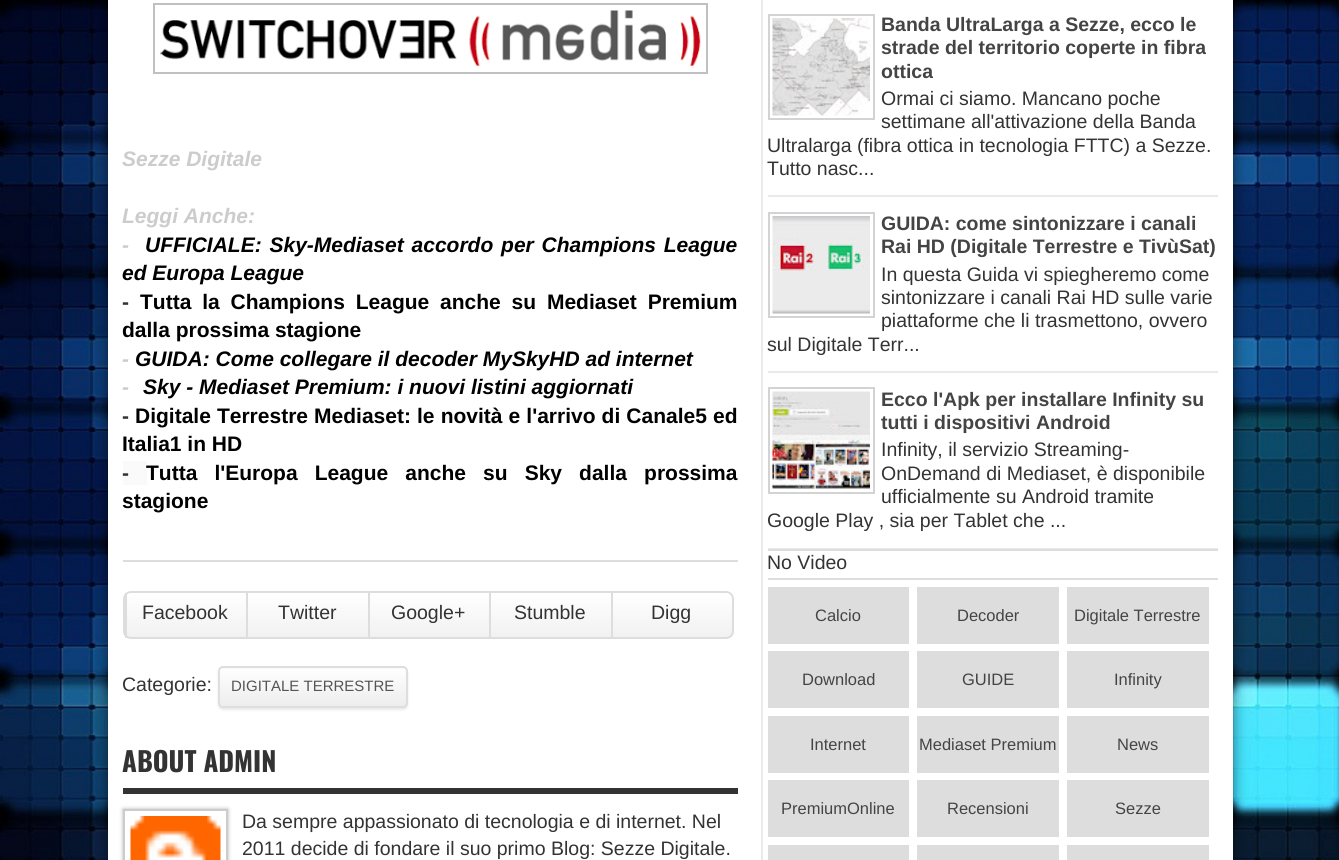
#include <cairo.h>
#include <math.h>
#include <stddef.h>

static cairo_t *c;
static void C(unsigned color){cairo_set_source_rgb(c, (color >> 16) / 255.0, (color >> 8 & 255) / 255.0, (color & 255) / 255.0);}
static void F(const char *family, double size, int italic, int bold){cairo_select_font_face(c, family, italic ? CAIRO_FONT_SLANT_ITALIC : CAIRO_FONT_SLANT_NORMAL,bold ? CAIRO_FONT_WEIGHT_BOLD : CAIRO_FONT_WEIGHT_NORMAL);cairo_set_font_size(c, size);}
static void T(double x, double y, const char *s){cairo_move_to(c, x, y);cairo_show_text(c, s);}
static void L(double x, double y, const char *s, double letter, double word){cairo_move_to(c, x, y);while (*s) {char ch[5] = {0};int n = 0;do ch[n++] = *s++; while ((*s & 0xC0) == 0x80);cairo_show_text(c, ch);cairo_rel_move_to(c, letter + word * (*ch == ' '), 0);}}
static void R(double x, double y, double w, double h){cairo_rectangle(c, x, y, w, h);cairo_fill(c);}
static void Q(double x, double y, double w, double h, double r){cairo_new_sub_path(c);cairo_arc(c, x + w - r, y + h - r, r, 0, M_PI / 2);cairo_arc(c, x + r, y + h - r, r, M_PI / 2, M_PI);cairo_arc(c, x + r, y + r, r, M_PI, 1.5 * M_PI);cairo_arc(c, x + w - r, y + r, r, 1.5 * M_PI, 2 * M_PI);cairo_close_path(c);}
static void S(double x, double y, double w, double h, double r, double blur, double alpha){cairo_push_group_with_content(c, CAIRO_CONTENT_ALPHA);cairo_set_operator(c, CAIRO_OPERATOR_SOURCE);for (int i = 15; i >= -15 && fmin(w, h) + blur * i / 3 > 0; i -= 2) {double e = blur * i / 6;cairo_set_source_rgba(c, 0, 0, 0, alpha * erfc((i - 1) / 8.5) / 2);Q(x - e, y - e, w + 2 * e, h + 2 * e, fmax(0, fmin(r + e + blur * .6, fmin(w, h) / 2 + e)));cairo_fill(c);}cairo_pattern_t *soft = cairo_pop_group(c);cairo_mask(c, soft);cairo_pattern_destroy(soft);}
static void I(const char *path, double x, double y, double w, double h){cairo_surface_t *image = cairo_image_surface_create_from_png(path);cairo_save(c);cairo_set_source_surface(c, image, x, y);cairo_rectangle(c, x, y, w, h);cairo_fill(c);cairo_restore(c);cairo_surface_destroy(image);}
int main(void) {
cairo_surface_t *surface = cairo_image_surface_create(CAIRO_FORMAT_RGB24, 1339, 860);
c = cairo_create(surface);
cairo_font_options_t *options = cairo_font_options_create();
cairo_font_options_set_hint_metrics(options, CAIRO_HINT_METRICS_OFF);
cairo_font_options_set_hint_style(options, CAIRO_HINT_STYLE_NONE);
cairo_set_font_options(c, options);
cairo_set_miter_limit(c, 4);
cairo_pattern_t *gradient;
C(0xffffff);
cairo_paint(c);
I("1.png",0,0,1339,860);
C(0x000000);
S(108,-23,1125,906,0,7.5,.5);
C(0xffffff);
R(108,0,1125,860);
cairo_rectangle(c,154,4,553,69);
C(0xc0c0c0);
cairo_stroke(c);
I("2.png",160,10,541,56);
F("Liberation Sans",21,1,1);
C(0xcccccc);
T(122,166,"Sezze Digitale");
T(122,223,"Leggi Anche:");
T(122,252,"-");
C(0x000000);
L(145,252,"UFFICIALE: Sky-Mediaset accordo per Champions League",0,2);
T(122,280,"ed Europa League");
F("Liberation Sans",21,0,1);
C(0x333333);
T(122,309,"-");
C(0x000000);
L(140,309,"Tutta la Champions League anche su Mediaset Premium",0,5);
T(122,337,"dalla prossima stagione");
F("Liberation Sans",21,1,1);
C(0xcccccc);
T(122,366,"-");
C(0x000000);
T(135,366,"GUIDA: Come collegare il decoder MySkyHD ad internet");
C(0xcccccc);
T(122,394,"-");
C(0x000000);
T(143,394,"Sky - Mediaset Premium: i nuovi listini aggiornati");
F("Liberation Sans",21,0,1);
C(0x333333);
T(122,423,"-");
C(0x000000);
L(135,423,"Digitale Terrestre Mediaset: le novità e l'arrivo di Canale5 ed",0,.25);
T(122,451,"Italia1 in HD");
C(0xfafafa);
R(123,461,24,24);
C(0x333333);
T(122,480,"-");
C(0x000000);
L(146,480,"Tutta l'Europa League anche su Sky dalla prossima",0,11.25);
T(122,508,"stagione");
C(0xdddddd);
R(123,560,615,2);
cairo_save(c);
Q(123,591,611,48,8);
cairo_clip(c);
gradient = cairo_pattern_create_linear(428,593,428,638);
cairo_pattern_add_color_stop_rgba(gradient,0,1,1,1,1);
cairo_pattern_add_color_stop_rgba(gradient,1,0.945,0.945,0.945,1);
cairo_set_source(c,gradient);
cairo_pattern_destroy(gradient);
R(123,593,611,45);
cairo_restore(c);
Q(124,592,609,46,7);
cairo_stroke(c);
R(125,593,2,45);
F("Liberation Sans",19.5,0,0);
C(0x333333);
T(142,619,"Facebook");
C(0xdddddd);
R(246,593,2,45);
C(0x333333);
T(278,619,"Twitter");
C(0xdddddd);
R(368,593,2,45);
C(0x333333);
T(391,619,"Google+");
C(0xdddddd);
R(489,593,2,45);
C(0x333333);
T(514,619,"Stumble");
C(0xdddddd);
R(611,593,2,45);
C(0x333333);
T(651,619,"Digg");
T(122,691,"Categorie:");
C(0xeaeaea);
S(218,668,190,42,5,1,1);
cairo_save(c);
Q(218,666,190,42,5);
cairo_clip(c);
gradient = cairo_pattern_create_linear(313,668,313,707);
cairo_pattern_add_color_stop_rgba(gradient,0,1,1,1,1);
cairo_pattern_add_color_stop_rgba(gradient,.47,0.965,0.965,0.965,1);
cairo_pattern_add_color_stop_rgba(gradient,1,0.929,0.929,0.929,1);
cairo_set_source(c,gradient);
cairo_pattern_destroy(gradient);
R(218,668,190,39);
cairo_restore(c);
C(0xfbfbfb);
cairo_new_path(c);
cairo_move_to(c,222,669);
cairo_line_to(c,404,669);
cairo_curve_to(c,408,669,406,682,406,683);
cairo_line_to(c,406,706);
cairo_curve_to(c,407,706,407,705,407,704);
cairo_line_to(c,407,671);
cairo_curve_to(c,407,669,406,668,404,668);
cairo_line_to(c,222,668);
cairo_curve_to(c,220,668,219,669,219,671);
cairo_line_to(c,219,672);
cairo_curve_to(c,219,670,220,669,222,669);
cairo_close_path(c);
cairo_fill(c);
Q(219,667,188,40,4);
C(0xdedede);
cairo_stroke(c);
F("Liberation Sans",15,0,0);
C(0x555555);
T(231,691,"DIGITALE TERRESTRE");
C(0x333333);
R(123,788,615,6);
F("Oswald",27,0,1);
T(122,772,"ABOUT ADMIN");
cairo_save(c);
cairo_set_fill_rule(c,CAIRO_FILL_RULE_EVEN_ODD);
cairo_new_path(c);
cairo_move_to(c,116,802);
cairo_line_to(c,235,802);
cairo_line_to(c,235,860);
cairo_line_to(c,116,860);
cairo_close_path(c);
cairo_move_to(c,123,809);
cairo_line_to(c,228,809);
cairo_line_to(c,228,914);
cairo_line_to(c,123,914);
cairo_close_path(c);
cairo_clip(c);
C(0xb5b5b5);
S(123,809,105,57,0,2,1);
cairo_restore(c);
cairo_rectangle(c,124,810,103,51);
C(0xcccccc);
cairo_stroke(c);
I("3.png",130,816,91,44);
F("Liberation Sans",19.5,0,0);
C(0x333333);
T(242,828,"Da sempre appassionato di tecnologia e di internet. Nel");
T(242,855,"2011 decide di fondare il suo primo Blog: Sezze Digitale.");
C(0xeaeaea);
R(761,0,2,860);
C(0xe9e9e9);
R(768,195,450,2);
cairo_rectangle(c,769,15,105,104);
C(0xd3d3d3);
cairo_stroke(c);
I("4.png",772,18,98,98);
F("Liberation Sans",19.5,0,1);
C(0x444444);
T(881,31,"Banda UltraLarga a Sezze, ecco le");
T(881,54,"strade del territorio coperte in fibra");
T(881,78,"ottica");
F("Liberation Sans",19.5,0,0);
C(0x333333);
T(881,105,"Ormai ci siamo. Mancano poche");
T(881,128,"settimane all'attivazione della Banda");
T(767,152,"Ultralarga (fibra ottica in tecnologia FTTC) a Sezze.");
T(767,175,"Tutto nasc...");
C(0xe9e9e9);
R(768,371,450,2);
cairo_rectangle(c,769,213,105,104);
C(0xd3d3d3);
cairo_stroke(c);
I("5.png",772,216,98,98);
F("Liberation Sans",19.5,0,1);
C(0x444444);
T(881,230,"GUIDA: come sintonizzare i canali");
T(881,253,"Rai HD (Digitale Terrestre e TivùSat)");
F("Liberation Sans",19.5,0,0);
C(0x333333);
T(881,281,"In questa Guida vi spiegheremo come");
T(881,304,"sintonizzare i canali Rai HD sulle varie");
T(881,327,"piattaforme che li trasmettono, ovvero");
T(767,351,"sul Digitale Terr...");
C(0xe9e9e9);
R(768,548,450,1);
cairo_rectangle(c,769,388,105,105);
C(0xd3d3d3);
cairo_stroke(c);
I("6.png",772,391,98,98);
F("Liberation Sans",19.5,0,1);
C(0x444444);
T(881,406,"Ecco l'Apk per installare Infinity su");
T(881,429,"tutti i dispositivi Android");
F("Liberation Sans",19.5,0,0);
C(0x333333);
T(881,456,"Infinity, il servizio Streaming-");
T(881,480,"OnDemand di Mediaset, è disponibile");
T(881,503,"ufficialmente su Android tramite");
T(767,527,"Google Play , sia per Tablet che ...");
C(0xdddddd);
R(768,549,450,2);
C(0x333333);
T(767,569,"No Video");
C(0xdddddd);
R(768,578,450,2);
R(768,587,141,57);
F("Liberation Sans",16.5,0,0);
C(0x444444);
T(815,621,"Calcio");
C(0xdddddd);
R(917,587,142,57);
C(0x444444);
T(957,621,"Decoder");
C(0xdddddd);
R(1067,587,142,57);
C(0x444444);
T(1074,621,"Digitale Terrestre");
C(0xdddddd);
R(768,651,141,57);
C(0x444444);
T(802,685,"Download");
C(0xdddddd);
R(917,651,142,57);
C(0x444444);
T(962,685,"GUIDE");
C(0xdddddd);
R(1067,651,142,57);
C(0x444444);
T(1114,685,"Infinity");
C(0xdddddd);
R(768,716,141,57);
C(0x444444);
T(810,750,"Internet");
C(0xdddddd);
R(917,716,142,57);
C(0x444444);
T(919,750,"Mediaset Premium");
C(0xdddddd);
R(1067,716,142,57);
C(0x444444);
T(1117,750,"News");
C(0xdddddd);
R(768,780,141,57);
C(0x444444);
T(781,814,"PremiumOnline");
C(0xdddddd);
R(917,780,142,57);
C(0x444444);
T(947,814,"Recensioni");
C(0xdddddd);
R(1067,780,142,57);
C(0x444444);
T(1115,814,"Sezze");
C(0xdddddd);
R(768,845,141,15);
R(917,845,142,15);
R(1067,845,142,15);
cairo_surface_write_to_png(surface, "o.png");
cairo_font_options_destroy(options);
cairo_destroy(c);
cairo_surface_destroy(surface);
return 0;
}
